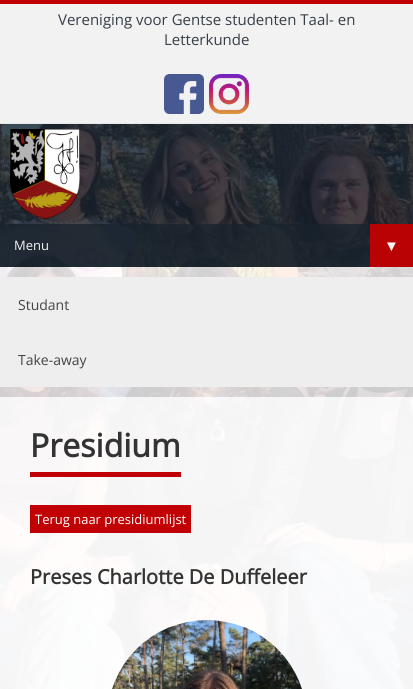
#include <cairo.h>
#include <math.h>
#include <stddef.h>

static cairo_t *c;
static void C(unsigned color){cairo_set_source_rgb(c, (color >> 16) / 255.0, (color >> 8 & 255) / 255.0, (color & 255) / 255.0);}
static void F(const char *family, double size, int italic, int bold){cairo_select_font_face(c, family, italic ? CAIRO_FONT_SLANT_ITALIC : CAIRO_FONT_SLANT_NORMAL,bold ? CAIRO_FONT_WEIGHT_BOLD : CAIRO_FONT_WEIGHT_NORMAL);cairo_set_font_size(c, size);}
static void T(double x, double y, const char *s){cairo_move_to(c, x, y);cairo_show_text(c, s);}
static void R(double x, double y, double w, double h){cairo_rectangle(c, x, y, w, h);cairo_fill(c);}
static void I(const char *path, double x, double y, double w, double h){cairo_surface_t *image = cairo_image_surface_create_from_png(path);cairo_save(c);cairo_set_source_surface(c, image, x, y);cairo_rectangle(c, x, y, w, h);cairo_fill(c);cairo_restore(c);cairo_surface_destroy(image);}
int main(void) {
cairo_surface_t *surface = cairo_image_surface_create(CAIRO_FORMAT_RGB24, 413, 689);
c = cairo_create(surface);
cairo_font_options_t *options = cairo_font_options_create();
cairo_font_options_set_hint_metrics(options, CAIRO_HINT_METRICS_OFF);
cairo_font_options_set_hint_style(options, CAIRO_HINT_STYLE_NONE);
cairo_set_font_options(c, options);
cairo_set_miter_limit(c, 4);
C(0xffffff);
cairo_paint(c);
I("1.png",0,124,413,565);
C(0xf2f2f2);
R(0,4,413,119);
C(0xc00003);
R(0,0,413,4);
C(0xe7e7e7);
R(0,123,413,1);
F("Open Sans",15,0,0);
C(0x353e47);
T(58,25,"Vereniging voor Gentse studenten Taal- en");
T(164,45,"Letterkunde");
I("2.png",164,74,40,40);
I("3.png",209,74,40,40);
cairo_set_source_rgba(c,0.098,0.137,0.176,0.8);
R(0,124,413,100);
I("4.png",10,129,70,90);
cairo_set_source_rgba(c,0.098,0.137,0.176,0.95);
R(0,224,413,43);
F("Open Sans",13,0,0);
C(0xf4f4f5);
T(14,250,"Menu");
cairo_set_source_rgba(c,0.753,0,0.012,0.95);
R(370,224,43,43);
F("Liberation Sans",15,0,0);
C(0xfbf2f3);
T(384,251,"▼");
cairo_set_source_rgba(c,1,1,1,0.8);
R(0,267,413,422);
C(0xeeeeee);
R(0,277,413,110);
F("Open Sans",14,0,0);
C(0x444444);
T(18,310,"Studant");
T(18,365,"Take-away");
cairo_set_source_rgba(c,1,1,1,0.8);
R(0,397,413,292);
C(0xc00003);
R(30,472,151,5);
F("Open Sans",32,0,1);
C(0x333333);
T(30,457,"Presidium");
C(0xc00003);
R(30,505,161,28);
F("Open Sans",13,0,0);
C(0xffffff);
T(35,524,"Terug naar presidiumlijst");
F("Open Sans",20,0,1);
C(0x333333);
T(30,584,"Preses Charlotte De Duffeleer");
I("5.png",112,620,190,69);
cairo_surface_write_to_png(surface, "o.png");
cairo_font_options_destroy(options);
cairo_destroy(c);
cairo_surface_destroy(surface);
return 0;
}
